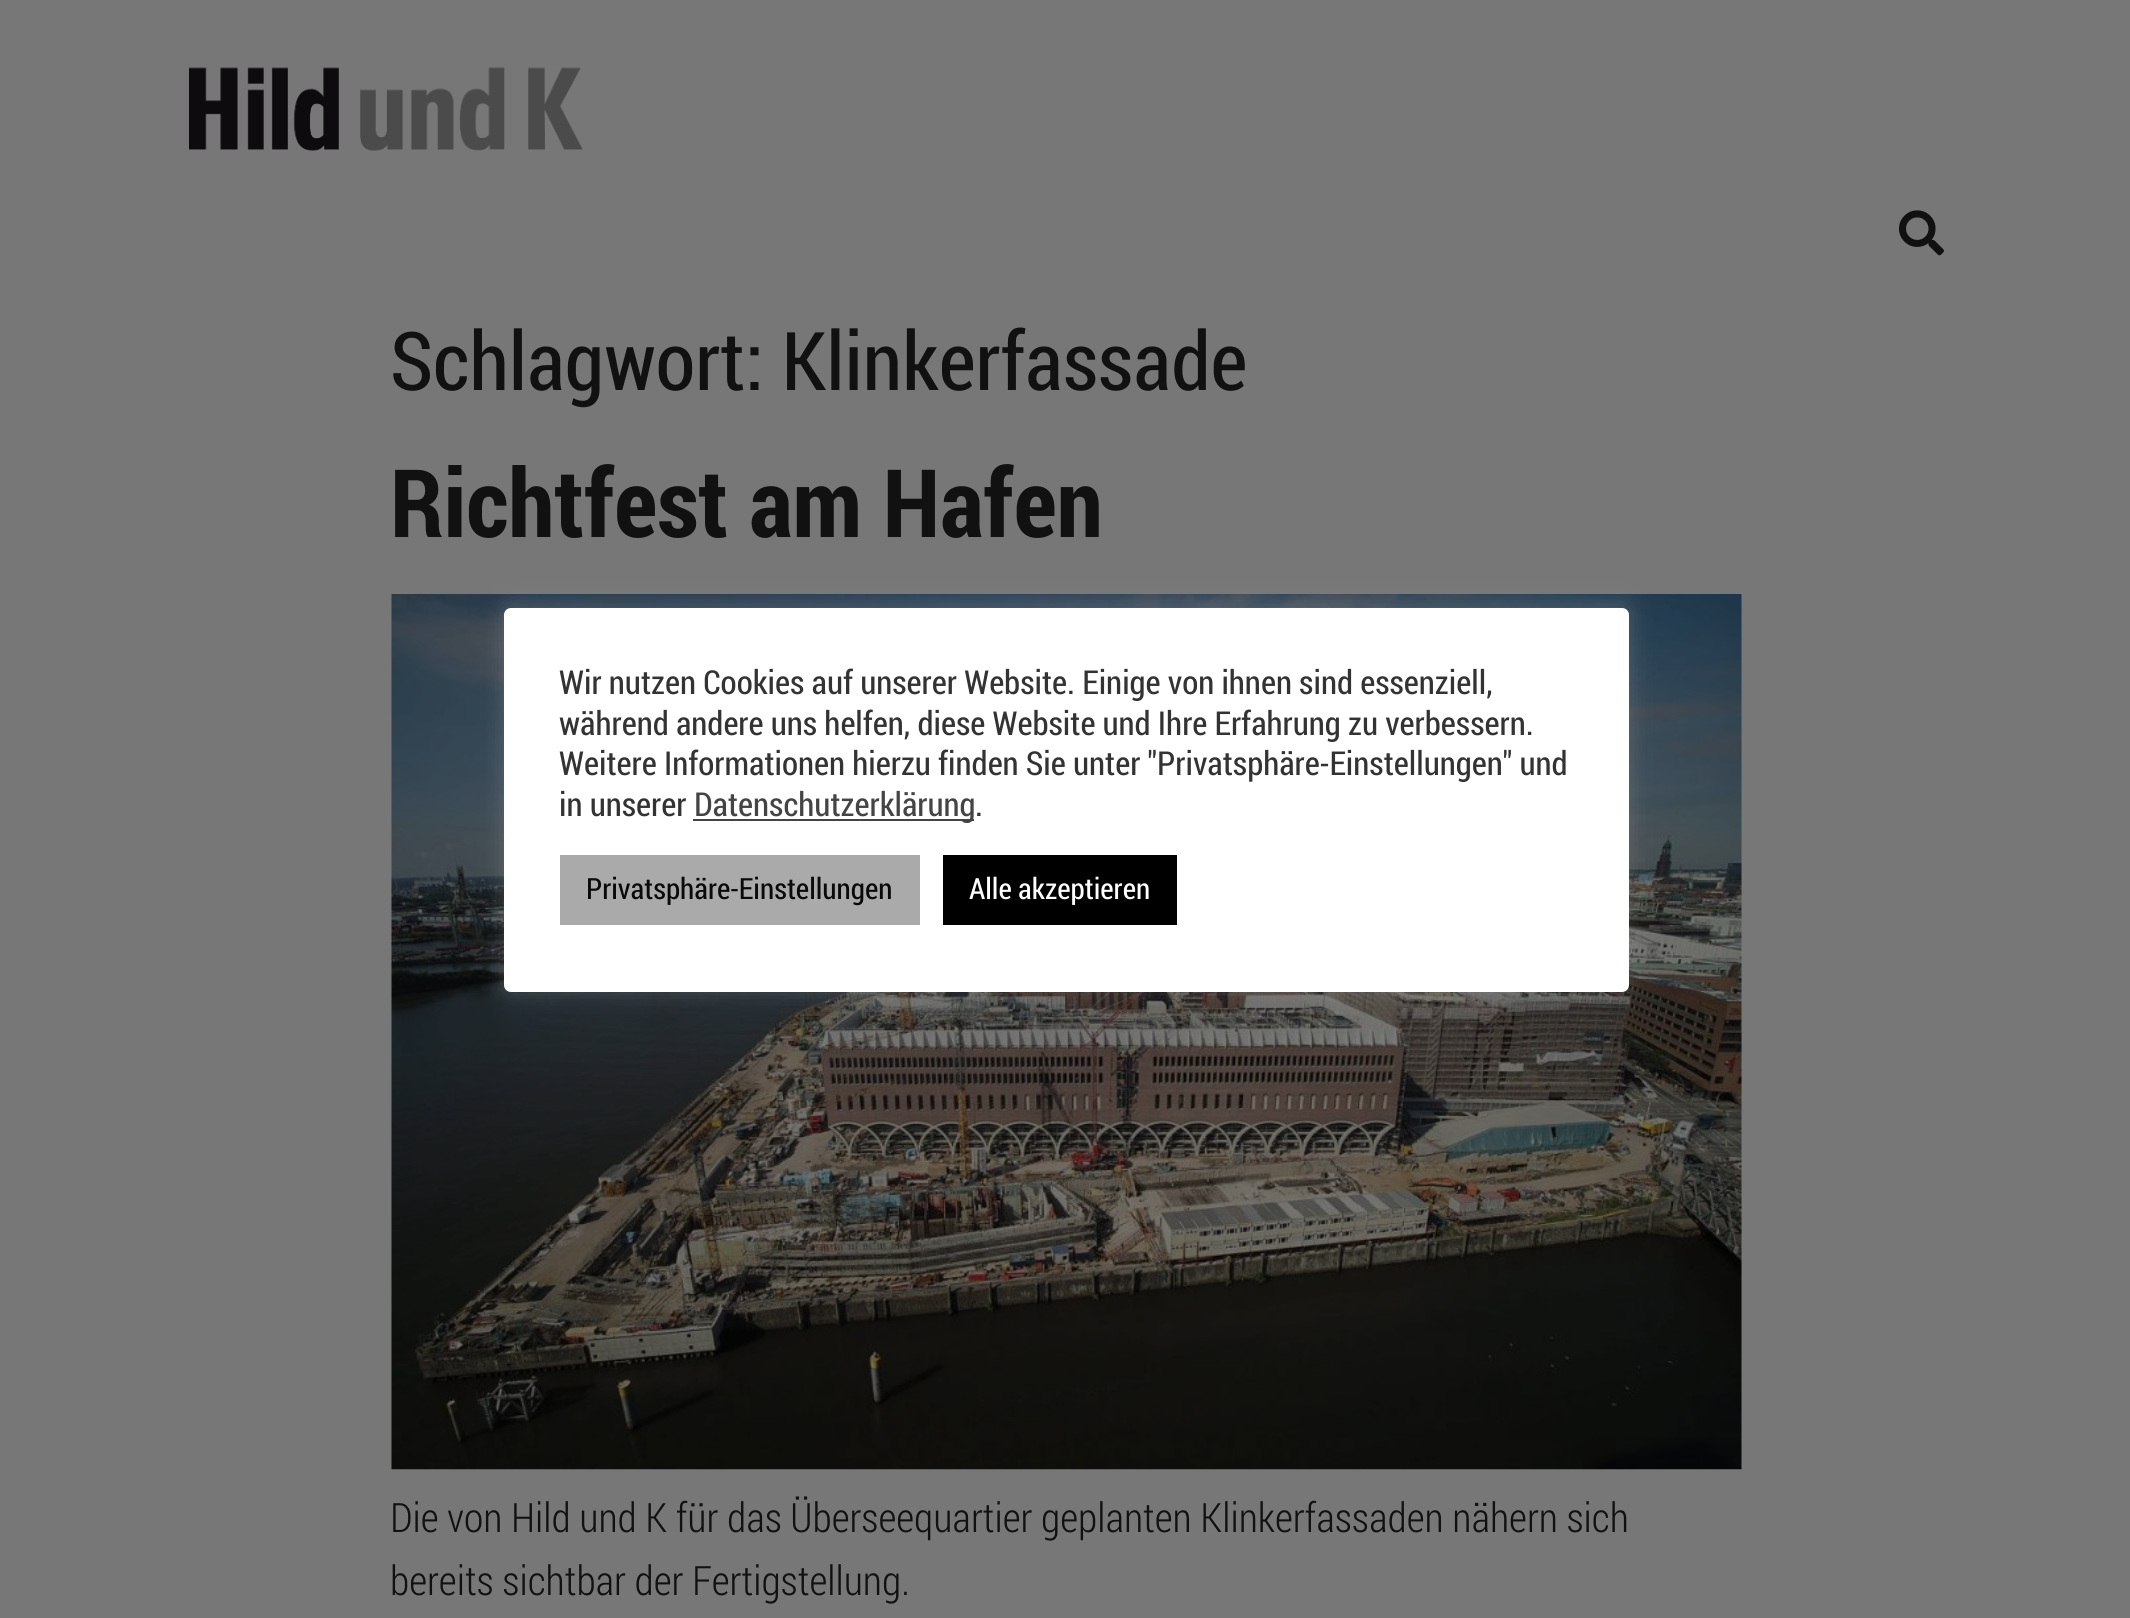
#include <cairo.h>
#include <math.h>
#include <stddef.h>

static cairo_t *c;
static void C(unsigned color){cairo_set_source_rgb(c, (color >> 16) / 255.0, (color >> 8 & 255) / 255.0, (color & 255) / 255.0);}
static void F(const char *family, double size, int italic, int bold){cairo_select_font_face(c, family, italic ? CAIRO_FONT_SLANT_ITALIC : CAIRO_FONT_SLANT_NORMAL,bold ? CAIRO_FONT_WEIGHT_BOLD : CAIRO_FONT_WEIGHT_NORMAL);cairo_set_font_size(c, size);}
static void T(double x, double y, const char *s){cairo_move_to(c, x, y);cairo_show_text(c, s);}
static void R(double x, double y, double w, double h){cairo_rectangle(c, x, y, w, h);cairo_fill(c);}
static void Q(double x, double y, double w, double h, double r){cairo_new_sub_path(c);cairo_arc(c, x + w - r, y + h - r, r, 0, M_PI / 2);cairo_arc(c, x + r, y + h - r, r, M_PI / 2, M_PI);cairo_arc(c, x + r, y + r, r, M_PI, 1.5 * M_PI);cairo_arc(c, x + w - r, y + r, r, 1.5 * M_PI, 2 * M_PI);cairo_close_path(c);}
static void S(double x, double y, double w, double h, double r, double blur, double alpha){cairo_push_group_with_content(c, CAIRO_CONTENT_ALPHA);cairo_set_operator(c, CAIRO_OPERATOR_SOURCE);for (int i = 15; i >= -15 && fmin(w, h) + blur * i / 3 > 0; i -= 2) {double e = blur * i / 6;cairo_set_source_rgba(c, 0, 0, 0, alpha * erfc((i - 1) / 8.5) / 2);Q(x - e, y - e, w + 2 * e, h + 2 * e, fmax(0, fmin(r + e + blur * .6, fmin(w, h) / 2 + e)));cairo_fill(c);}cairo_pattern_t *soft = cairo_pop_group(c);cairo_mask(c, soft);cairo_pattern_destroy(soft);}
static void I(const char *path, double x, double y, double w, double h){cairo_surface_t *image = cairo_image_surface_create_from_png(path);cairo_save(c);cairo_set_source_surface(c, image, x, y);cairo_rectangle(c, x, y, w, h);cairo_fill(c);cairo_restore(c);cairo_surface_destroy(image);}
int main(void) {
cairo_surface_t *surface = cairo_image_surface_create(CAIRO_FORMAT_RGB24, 2130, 1618);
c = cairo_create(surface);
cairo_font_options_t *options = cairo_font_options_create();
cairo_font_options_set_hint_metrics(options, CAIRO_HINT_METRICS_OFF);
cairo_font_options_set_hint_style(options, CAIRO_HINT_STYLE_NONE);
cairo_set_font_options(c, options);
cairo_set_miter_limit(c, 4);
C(0x777777);
cairo_paint(c);
I("1.png",189,67,394,84);
I("2.png",1899,210,45,46);
F("Roboto Condensed",81,0,0);
C(0x111111);
T(390,390,"Schlagwort: Klinkerfassade");
F("Roboto Condensed",94.5,0,1);
T(390,537,"Richtfest am Hafen");
I("3.png",391,594,1351,876);
F("Roboto Condensed Light",40.5,0,0);
T(390,1532,"Die von Hild und K für das Überseequartier geplanten Klinkerfassaden nähern sich");
T(390,1595,"bereits sichtbar der Fertigstellung.");
C(0xacabab);
S(504,605,1125,385,7,11,.3);
C(0xffffff);
Q(504,608,1125,384,7);
cairo_fill(c);
F("Roboto Condensed",33,0,0);
C(0x333333);
T(559,694,"Wir nutzen Cookies auf unserer Website. Einige von ihnen sind essenziell,");
T(559,735,"während andere uns helfen, diese Website und Ihre Erfahrung zu verbessern.");
T(559,775,"Weitere Informationen hierzu finden Sie unter \"Privatsphäre-Einstellungen\" und");
T(559,816,"in unserer");
C(0x444444);
R(693,819,281,2);
T(694,816,"Datenschutzerklärung");
C(0x333333);
T(975,816,".");
C(0xaaaaaa);
R(560,855,360,70);
F("Roboto Condensed",29.25,0,0);
C(0x0a0a0a);
T(586,899,"Privatsphäre-Einstellungen");
C(0x000000);
R(943,855,234,70);
C(0xffffff);
T(969,899,"Alle akzeptieren");
cairo_surface_write_to_png(surface, "o.png");
cairo_font_options_destroy(options);
cairo_destroy(c);
cairo_surface_destroy(surface);
return 0;
}
